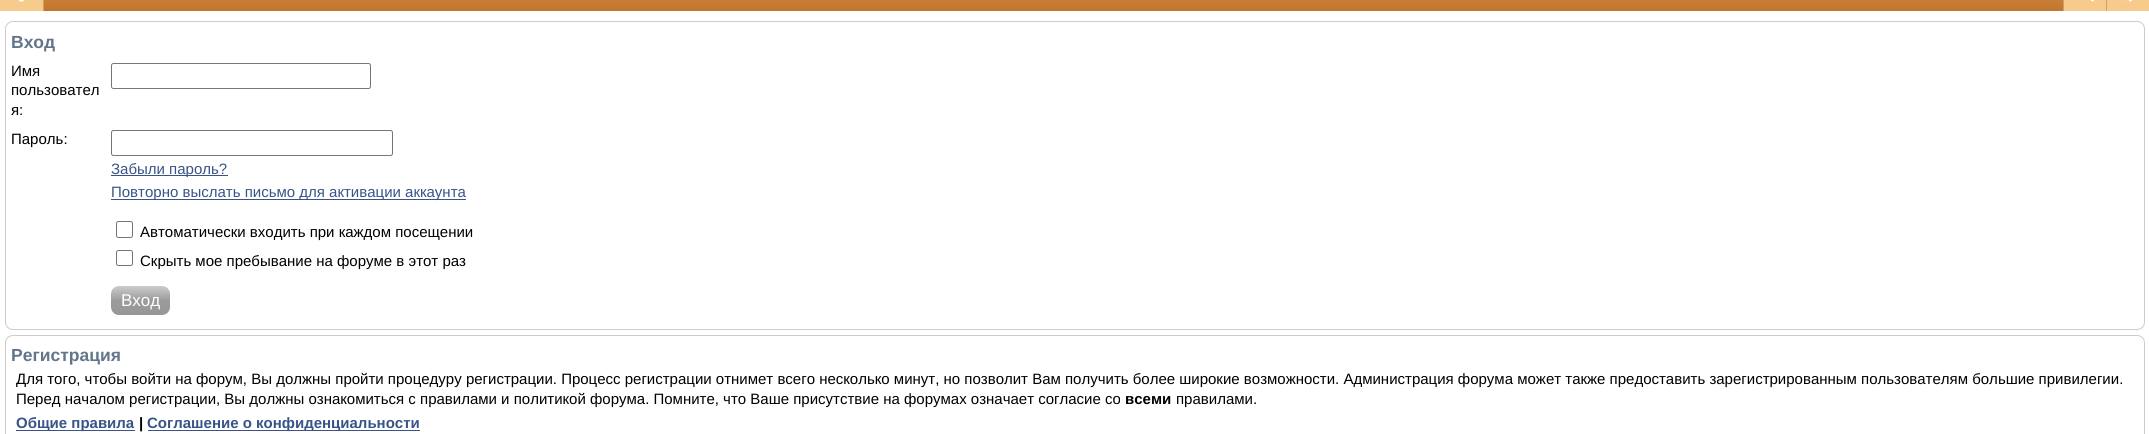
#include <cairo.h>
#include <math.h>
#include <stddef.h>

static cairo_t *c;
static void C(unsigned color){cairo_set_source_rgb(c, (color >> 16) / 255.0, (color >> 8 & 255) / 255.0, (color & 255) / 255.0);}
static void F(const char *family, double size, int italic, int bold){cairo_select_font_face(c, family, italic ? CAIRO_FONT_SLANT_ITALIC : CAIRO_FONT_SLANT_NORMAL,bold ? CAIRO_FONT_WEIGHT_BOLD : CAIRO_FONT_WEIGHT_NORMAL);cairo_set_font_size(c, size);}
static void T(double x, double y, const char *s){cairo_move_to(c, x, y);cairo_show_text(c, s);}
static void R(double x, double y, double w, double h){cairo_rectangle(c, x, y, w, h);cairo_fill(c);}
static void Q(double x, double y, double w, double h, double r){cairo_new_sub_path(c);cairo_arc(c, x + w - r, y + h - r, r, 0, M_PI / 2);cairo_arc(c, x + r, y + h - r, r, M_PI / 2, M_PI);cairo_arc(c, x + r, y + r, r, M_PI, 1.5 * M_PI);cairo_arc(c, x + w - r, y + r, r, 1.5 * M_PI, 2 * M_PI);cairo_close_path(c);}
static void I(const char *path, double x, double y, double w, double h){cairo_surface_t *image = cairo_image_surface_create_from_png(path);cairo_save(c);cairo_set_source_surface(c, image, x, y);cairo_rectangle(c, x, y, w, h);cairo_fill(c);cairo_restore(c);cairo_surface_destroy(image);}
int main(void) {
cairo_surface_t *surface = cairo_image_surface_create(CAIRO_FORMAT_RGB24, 2149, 434);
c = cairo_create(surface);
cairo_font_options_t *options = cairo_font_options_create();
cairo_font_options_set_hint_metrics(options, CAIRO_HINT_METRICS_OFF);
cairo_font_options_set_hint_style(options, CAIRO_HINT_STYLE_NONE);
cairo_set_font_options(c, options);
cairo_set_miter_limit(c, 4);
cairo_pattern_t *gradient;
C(0xffffff);
cairo_paint(c);
gradient = cairo_pattern_create_linear(1075,-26,1075,11);
cairo_pattern_add_color_stop_rgba(gradient,0,0.835,0.569,0.298,1);
cairo_pattern_add_color_stop_rgba(gradient,1,0.757,0.463,0.173,1);
cairo_set_source(c,gradient);
cairo_pattern_destroy(gradient);
R(44,0,2019,11);
C(0xf6cb8b);
R(0,0,43,11);
I("1.png",19,0,5,2);
C(0xc5a26f);
R(43,0,1,11);
C(0xf6cb8b);
R(2064,0,42,11);
I("2.png",2090,0,4,2);
C(0xc5a26f);
R(2063,0,1,11);
C(0xf6cb8b);
R(2107,0,42,11);
I("3.png",2124,0,8,2);
C(0xc5a26f);
R(2106,0,1,11);
Q(5.5,21.5,2139,308,7.5);
C(0xcccccc);
cairo_set_line_width(c,1);
cairo_stroke(c);
F("Liberation Sans",17.5,0,1);
C(0x63758b);
T(11,48,"Вход");
F("Liberation Sans",15,0,0);
C(0x000000);
T(11,76,"Имя");
T(11,95,"пользовател");
T(11,115,"я:");
Q(111.5,63.5,259,25,2);
C(0x767676);
cairo_stroke(c);
C(0x000000);
T(11,144,"Пароль:");
Q(111.5,130.5,281,25,2);
C(0x767676);
cairo_stroke(c);
C(0x385487);
R(111,175,117,1);
T(111,174,"Забыли пароль?");
R(111,199,355,1);
T(111,197,"Повторно выслать письмо для активации аккаунта");
Q(116.5,221.5,16,16,2);
C(0x767676);
cairo_stroke(c);
C(0x000000);
T(140,237,"Автоматически входить при каждом посещении");
Q(116.5,250.5,16,15,2);
C(0x767676);
cairo_stroke(c);
C(0x000000);
T(140,266,"Скрыть мое пребывание на форуме в этот раз");
gradient = cairo_pattern_create_linear(141,286,141,315);
cairo_pattern_add_color_stop_rgba(gradient,0,0.8,0.8,0.8,1);
cairo_pattern_add_color_stop_rgba(gradient,.5,0.608,0.608,0.608,1);
cairo_pattern_add_color_stop_rgba(gradient,1,0.592,0.592,0.592,1);
cairo_set_source(c,gradient);
cairo_pattern_destroy(gradient);
Q(111,286,59,29,8);
cairo_fill(c);
F("Liberation Sans",17,0,0);
C(0xffffff);
T(121,306,"Вход");
Q(5.5,335.5,2139,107,7.5);
C(0xcccccc);
cairo_stroke(c);
F("Liberation Sans",17.5,0,1);
C(0x63758b);
T(11,361,"Регистрация");
F("Liberation Sans",15,0,0);
C(0x000000);
T(16,384,"Для того, чтобы войти на форум, Вы должны пройти процедуру регистрации. Процесс регистрации отнимет всего несколько минут, но позволит Вам получить более широкие возможности. Администрация форума может также предоставить зарегистрированным пользователям большие привилегии.");
T(16,404,"Перед началом регистрации, Вы должны ознакомиться с правилами и политикой форума. Помните, что Ваше присутствие на форумах означает согласие со");
F("Liberation Sans",15,0,1);
T(1125,404,"всеми");
F("Liberation Sans",15,0,0);
T(1176,404,"правилами.");
C(0x385487);
R(16,430,119,1);
F("Liberation Sans",15,0,1);
T(16,428,"Общие правила");
C(0x000000);
T(139,428,"|");
C(0x385487);
R(148,430,272,1);
T(147,428,"Соглашение о конфиденциальности");
cairo_surface_write_to_png(surface, "o.png");
cairo_font_options_destroy(options);
cairo_destroy(c);
cairo_surface_destroy(surface);
return 0;
}
